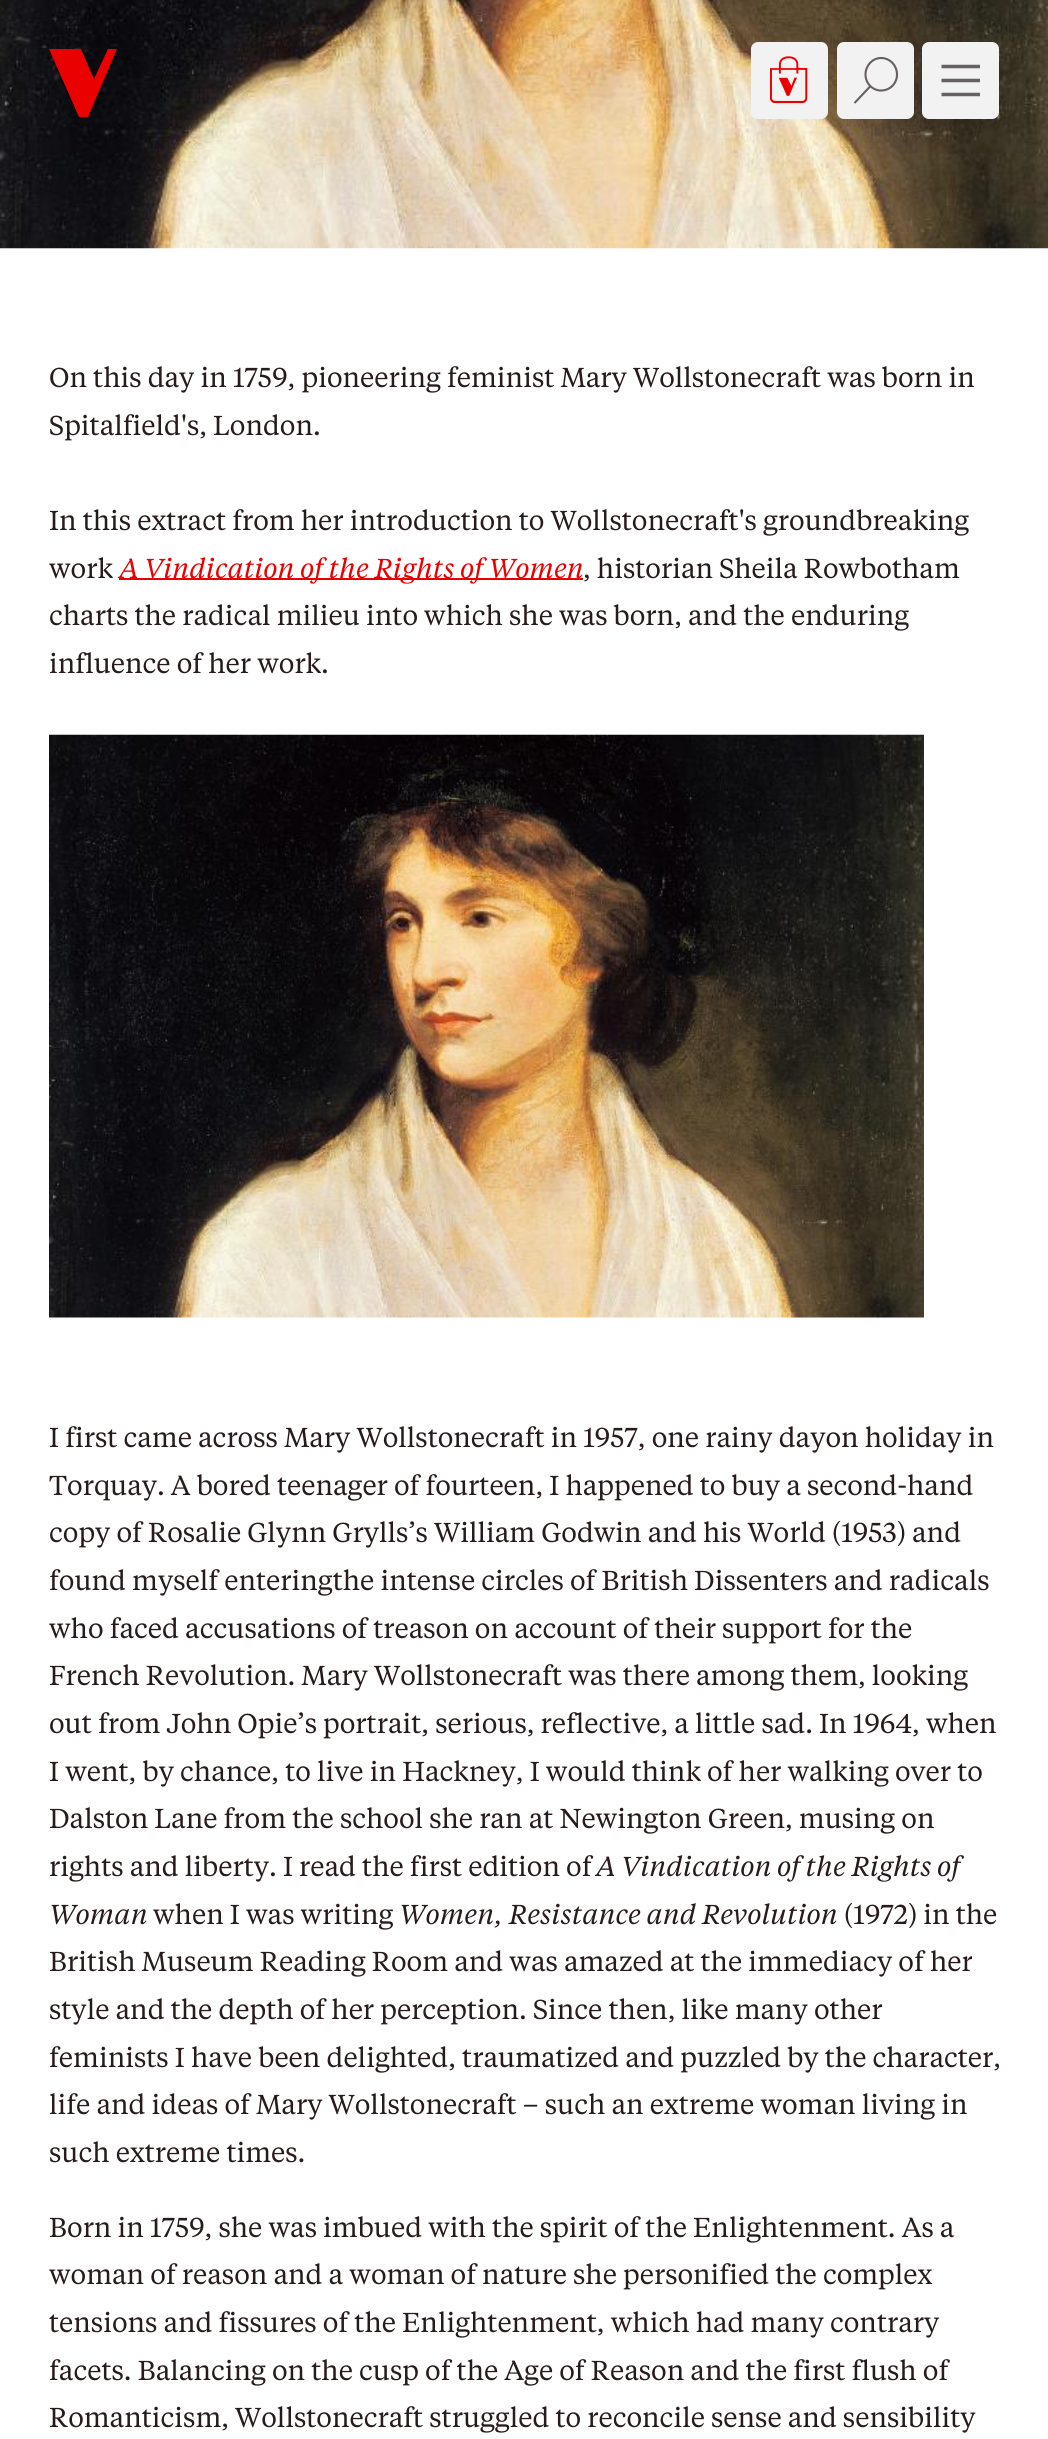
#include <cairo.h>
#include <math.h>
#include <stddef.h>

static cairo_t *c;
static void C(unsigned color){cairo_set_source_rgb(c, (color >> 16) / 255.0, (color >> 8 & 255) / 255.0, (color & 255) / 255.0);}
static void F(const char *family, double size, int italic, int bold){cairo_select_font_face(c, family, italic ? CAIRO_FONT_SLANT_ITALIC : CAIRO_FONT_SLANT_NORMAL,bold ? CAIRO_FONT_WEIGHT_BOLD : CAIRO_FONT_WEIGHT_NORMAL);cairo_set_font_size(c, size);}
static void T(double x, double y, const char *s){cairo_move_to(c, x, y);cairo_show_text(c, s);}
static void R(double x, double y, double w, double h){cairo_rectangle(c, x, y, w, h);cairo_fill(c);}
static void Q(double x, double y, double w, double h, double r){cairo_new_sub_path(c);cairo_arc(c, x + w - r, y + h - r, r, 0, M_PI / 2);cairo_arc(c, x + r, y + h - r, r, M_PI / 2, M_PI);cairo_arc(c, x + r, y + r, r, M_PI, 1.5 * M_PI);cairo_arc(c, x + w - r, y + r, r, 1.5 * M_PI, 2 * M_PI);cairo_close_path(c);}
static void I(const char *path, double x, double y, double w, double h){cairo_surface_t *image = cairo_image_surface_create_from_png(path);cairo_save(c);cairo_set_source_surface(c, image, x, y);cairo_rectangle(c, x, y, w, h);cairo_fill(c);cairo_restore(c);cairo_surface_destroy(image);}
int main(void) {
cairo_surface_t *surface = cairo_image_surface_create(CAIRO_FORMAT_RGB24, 1048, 2439);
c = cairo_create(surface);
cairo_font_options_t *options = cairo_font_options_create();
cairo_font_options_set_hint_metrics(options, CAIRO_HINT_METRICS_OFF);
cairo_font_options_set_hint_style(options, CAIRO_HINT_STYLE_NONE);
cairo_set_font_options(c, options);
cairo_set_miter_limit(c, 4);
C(0xffffff);
cairo_paint(c);
I("2.png",0,0,1048,249);
C(0xeb0000);
cairo_new_path(c);
cairo_move_to(c,49,49);
cairo_line_to(c,81,49);
cairo_line_to(c,94,79);
cairo_line_to(c,108,49);
cairo_line_to(c,117,49);
cairo_line_to(c,88,117);
cairo_line_to(c,79,117);
cairo_close_path(c);
cairo_fill(c);
C(0xf2f2f2);
Q(751,42,77,77,7);
cairo_fill(c);
I("1.png",770,56,38,48);
Q(837,42,77,77,7);
cairo_fill(c);
cairo_new_path(c);
cairo_move_to(c,871,85.5);
cairo_line_to(c,854.5,103);
cairo_move_to(c,897,74.5);
cairo_curve_to(c,897,83.5,890,90.5,881,90.5);
cairo_curve_to(c,872.5,90.5,865.5,83.5,865.5,74.5);
cairo_curve_to(c,865.5,65.5,872.5,58,881,58);
cairo_curve_to(c,890,58,897,65.5,897,74.5);
cairo_close_path(c);
C(0x666060);
cairo_set_line_width(c,2.1);
cairo_stroke(c);
C(0xf2f2f2);
Q(922,42,77,77,7);
cairo_fill(c);
cairo_new_path(c);
cairo_move_to(c,941.5,66.5);
cairo_line_to(c,980,66.5);
cairo_move_to(c,941.5,80.5);
cairo_line_to(c,980,80.5);
cairo_move_to(c,941.5,94.5);
cairo_line_to(c,980,94.5);
C(0x666060);
cairo_set_line_width(c,3.5);
cairo_stroke(c);
F("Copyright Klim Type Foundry",27.25,0,0);
C(0x271b1b);
T(49,387,"On this day in 1759, pioneering feminist Mary Wollstonecraft was born in");
T(49,435,"Spitalfield's, London.");
T(49,530,"In this extract from her introduction to Wollstonecraft's groundbreaking");
T(49,578,"work");
C(0xeb0000);
R(119,578,464,2);
F("Copyright Klim Type Foundry",27.25,1,0);
T(119,578,"A Vindication of the Rights of Women");
F("Copyright Klim Type Foundry",27.25,0,0);
C(0x271b1b);
T(583,578,", historian Sheila Rowbotham");
T(49,625,"charts the radical milieu into which she was born, and the enduring");
T(49,673,"influence of her work.");
I("3.png",49,734,875,584);
T(49,1447,"I first came across Mary Wollstonecraft in 1957, one rainy dayon holiday in");
T(49,1495,"Torquay. A bored teenager of fourteen, I happened to buy a second-hand");
T(49,1542,"copy of Rosalie Glynn Grylls’s William Godwin and his World (1953) and");
T(49,1590,"found myself enteringthe intense circles of British Dissenters and radicals");
T(49,1638,"who faced accusations of treason on account of their support for the");
T(49,1685,"French Revolution. Mary Wollstonecraft was there among them, looking");
T(49,1733,"out from John Opie’s portrait, serious, reflective, a little sad. In 1964, when");
T(49,1781,"I went, by chance, to live in Hackney, I would think of her walking over to");
T(49,1828,"Dalston Lane from the school she ran at Newington Green, musing on");
T(49,1876,"rights and liberty. I read the first edition of");
F("Copyright Klim Type Foundry",27.25,1,0);
T(596,1876,"A Vindication of the Rights of");
T(49,1924,"Woman");
F("Copyright Klim Type Foundry",27.25,0,0);
T(153,1924,"when I was writing");
F("Copyright Klim Type Foundry",27.25,1,0);
T(399,1924,"Women, Resistance and Revolution");
F("Copyright Klim Type Foundry",27.25,0,0);
T(844,1924,"(1972) in the");
T(49,1971,"British Museum Reading Room and was amazed at the immediacy of her");
T(49,2019,"style and the depth of her perception. Since then, like many other");
T(49,2067,"feminists I have been delighted, traumatized and puzzled by the character,");
T(49,2114,"life and ideas of Mary Wollstonecraft – such an extreme woman living in");
T(49,2162,"such extreme times.");
T(49,2237,"Born in 1759, she was imbued with the spirit of the Enlightenment. As a");
T(49,2284,"woman of reason and a woman of nature she personified the complex");
T(49,2332,"tensions and fissures of the Enlightenment, which had many contrary");
T(49,2380,"facets. Balancing on the cusp of the Age of Reason and the first flush of");
T(49,2427,"Romanticism, Wollstonecraft struggled to reconcile sense and sensibility");
cairo_surface_write_to_png(surface, "o.png");
cairo_font_options_destroy(options);
cairo_destroy(c);
cairo_surface_destroy(surface);
return 0;
}
